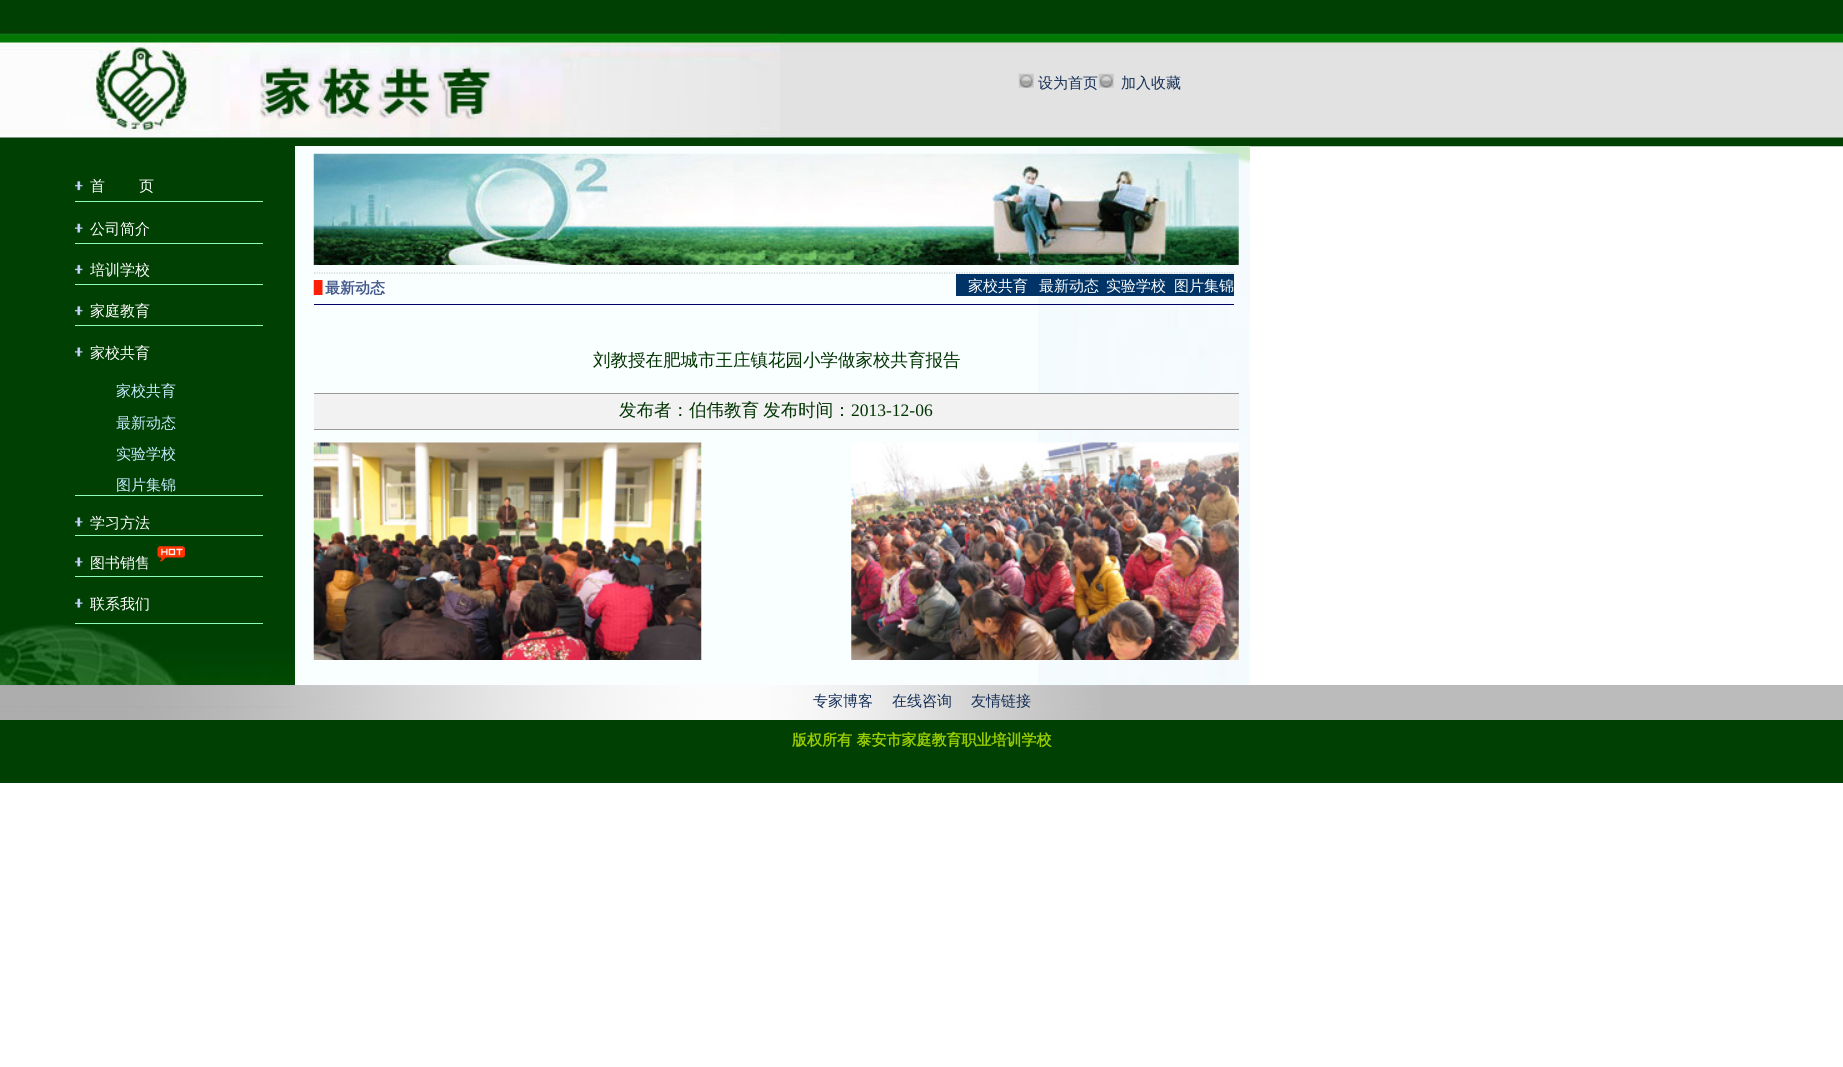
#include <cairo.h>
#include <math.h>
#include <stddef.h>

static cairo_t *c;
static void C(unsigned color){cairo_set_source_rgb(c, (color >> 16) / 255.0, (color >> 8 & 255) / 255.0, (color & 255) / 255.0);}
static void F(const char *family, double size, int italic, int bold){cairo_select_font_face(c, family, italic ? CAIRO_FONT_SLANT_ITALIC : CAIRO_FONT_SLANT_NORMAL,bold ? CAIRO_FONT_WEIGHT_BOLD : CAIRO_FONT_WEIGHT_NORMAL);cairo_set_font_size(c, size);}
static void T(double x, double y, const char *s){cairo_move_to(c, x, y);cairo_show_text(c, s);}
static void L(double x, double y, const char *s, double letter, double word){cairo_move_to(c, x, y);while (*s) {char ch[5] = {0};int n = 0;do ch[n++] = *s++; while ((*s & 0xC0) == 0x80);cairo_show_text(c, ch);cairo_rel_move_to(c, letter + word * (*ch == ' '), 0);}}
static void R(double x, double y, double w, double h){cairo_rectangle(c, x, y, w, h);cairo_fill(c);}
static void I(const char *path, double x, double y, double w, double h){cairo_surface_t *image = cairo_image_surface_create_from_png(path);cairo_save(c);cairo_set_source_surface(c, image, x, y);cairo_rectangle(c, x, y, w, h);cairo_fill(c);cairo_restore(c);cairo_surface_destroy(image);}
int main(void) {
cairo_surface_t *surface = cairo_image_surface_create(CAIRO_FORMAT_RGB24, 1843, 1067);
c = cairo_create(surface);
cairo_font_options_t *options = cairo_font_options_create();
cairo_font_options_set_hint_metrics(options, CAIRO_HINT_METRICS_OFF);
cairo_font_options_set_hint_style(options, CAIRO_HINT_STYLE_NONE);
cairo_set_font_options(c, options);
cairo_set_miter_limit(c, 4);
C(0xffffff);
cairo_paint(c);
I("1.png",0,0,1843,147);
I("2.png",0,31,780,115);
I("3.png",1018,73,16,15);
F("WenQuanYi Zen Hei Medium",15,0,0);
C(0x162f56);
T(1038,88,"设为首页");
I("4.png",1098,73,16,15);
T(1121,88,"加入收藏");
C(0x004003);
R(0,146,295,478);
I("5.png",0,624,295,61);
I("6.png",75,181,8,10);
C(0xffffff);
T(90,191,"首");
T(139,191,"页");
C(0x8cffba);
R(75,201,188,1);
I("7.png",75,223,8,10);
C(0xffffff);
T(90,234,"公司简介");
C(0x8cffba);
R(75,243,188,1);
I("8.png",75,264,8,10);
C(0xffffff);
T(90,275,"培训学校");
C(0x8cffba);
R(75,284,188,1);
I("6.png",75,306,8,10);
C(0xffffff);
T(90,316,"家庭教育");
C(0x8cffba);
R(75,325,188,1);
I("9.png",75,347,8,10);
C(0xffffff);
T(90,358,"家校共育");
C(0xc8ebff);
T(116,396,"家校共育");
T(116,428,"最新动态");
T(116,459,"实验学校");
T(116,490,"图片集锦");
C(0x8cffba);
R(75,495,188,1);
I("9.png",75,517,8,10);
C(0xffffff);
T(90,528,"学习方法");
I("10.png",157,546,28,16);
C(0x8cffba);
R(75,535,188,1);
I("9.png",75,557,8,10);
C(0xffffff);
T(90,568,"图书销售");
C(0x8cffba);
R(75,576,188,1);
I("7.png",75,598,8,10);
C(0xffffff);
T(90,609,"联系我们");
C(0x8cffba);
R(75,623,188,1);
C(0xf9ffff);
R(295,146,743,539);
I("11.png",1038,146,212,539);
I("12.png",313,153,926,112);
cairo_new_path(c);
cairo_move_to(c,314,273);
cairo_line_to(c,1234,273);
C(0xcccccc);
cairo_set_line_width(c,1.2);
cairo_set_dash(c,(double[]){1.25,1.25},2,0);
cairo_stroke(c);
C(0x000066);
R(314,304,920,1);
I("13.png",313,280,10,15);
F("WenQuanYi Zen Hei",15,0,1);
C(0x45598c);
T(325,293,"最新动态");
C(0x003366);
R(956,274,278,22);
F("WenQuanYi Zen Hei Medium",15,0,0);
C(0xffffff);
T(968,291,"家校共育");
T(1039,291,"最新动态");
T(1106,291,"实验学校");
T(1174,291,"图片集锦");
F("WenQuanYi Zen Hei Medium",17.5,0,0);
C(0x003300);
T(593,366,"刘教授在肥城市王庄镇花园小学做家校共育报告");
C(0xf2f2f2);
R(314,394,925,35);
C(0x999999);
R(314,393,925,1);
R(314,429,925,1);
C(0x003300);
L(619,416,"发布者：伯伟教育 发布时间：",0,-1);
F("Liberation Serif",17.5,0,0);
T(851,416,"2013-12-06");
I("14.png",313,442,389,218);
I("15.png",851,442,388,218);
C(0xbbbbbb);
R(1101,685,742,35);
I("16.png",0,685,1101,35);
F("WenQuanYi Zen Hei Medium",15,0,0);
C(0x162f56);
T(813,706,"专家博客");
T(892,706,"在线咨询");
T(971,706,"友情链接");
C(0x004003);
R(0,720,1843,63);
F("WenQuanYi Zen Hei",15,0,1);
C(0x99cc00);
T(792,745,"版权所有 泰安市家庭教育职业培训学校");
cairo_surface_write_to_png(surface, "o.png");
cairo_font_options_destroy(options);
cairo_destroy(c);
cairo_surface_destroy(surface);
return 0;
}
